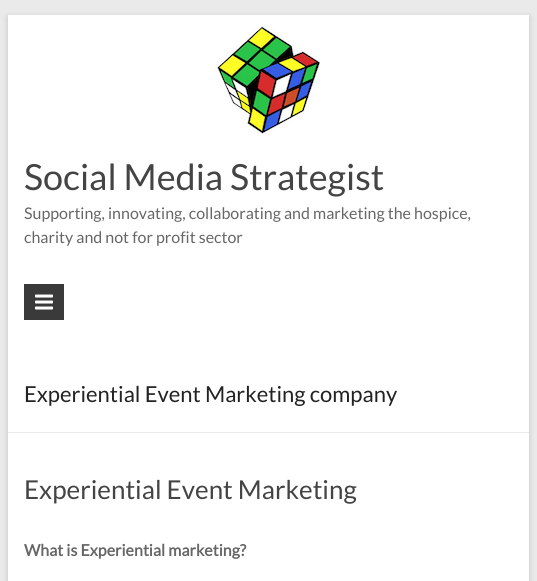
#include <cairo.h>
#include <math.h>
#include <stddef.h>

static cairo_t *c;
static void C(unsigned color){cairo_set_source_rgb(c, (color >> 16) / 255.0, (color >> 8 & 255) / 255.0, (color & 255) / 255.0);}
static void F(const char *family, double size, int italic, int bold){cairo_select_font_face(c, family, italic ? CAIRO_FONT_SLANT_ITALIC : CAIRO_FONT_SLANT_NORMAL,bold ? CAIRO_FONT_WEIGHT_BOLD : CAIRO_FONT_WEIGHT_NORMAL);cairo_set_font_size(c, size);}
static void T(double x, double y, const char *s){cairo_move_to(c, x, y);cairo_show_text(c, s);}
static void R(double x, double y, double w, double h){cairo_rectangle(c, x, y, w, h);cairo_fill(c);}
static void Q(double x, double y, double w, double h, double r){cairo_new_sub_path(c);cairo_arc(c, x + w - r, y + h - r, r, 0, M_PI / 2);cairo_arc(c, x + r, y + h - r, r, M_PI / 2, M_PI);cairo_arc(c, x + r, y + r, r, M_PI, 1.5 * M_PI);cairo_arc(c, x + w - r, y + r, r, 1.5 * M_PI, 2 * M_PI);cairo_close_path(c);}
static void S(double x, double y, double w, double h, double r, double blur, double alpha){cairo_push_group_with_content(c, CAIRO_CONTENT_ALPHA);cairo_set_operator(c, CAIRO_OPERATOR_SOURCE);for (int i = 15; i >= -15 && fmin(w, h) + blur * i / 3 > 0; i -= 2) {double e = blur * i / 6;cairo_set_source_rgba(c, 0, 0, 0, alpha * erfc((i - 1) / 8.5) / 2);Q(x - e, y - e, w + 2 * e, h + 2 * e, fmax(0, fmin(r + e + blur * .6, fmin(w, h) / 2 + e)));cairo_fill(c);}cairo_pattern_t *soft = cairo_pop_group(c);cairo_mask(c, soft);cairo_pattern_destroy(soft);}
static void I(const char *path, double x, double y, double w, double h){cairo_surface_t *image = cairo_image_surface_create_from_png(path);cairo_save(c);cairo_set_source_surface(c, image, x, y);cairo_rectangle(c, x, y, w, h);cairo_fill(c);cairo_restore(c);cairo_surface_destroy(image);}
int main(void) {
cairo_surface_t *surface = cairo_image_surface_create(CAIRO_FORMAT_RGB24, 537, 581);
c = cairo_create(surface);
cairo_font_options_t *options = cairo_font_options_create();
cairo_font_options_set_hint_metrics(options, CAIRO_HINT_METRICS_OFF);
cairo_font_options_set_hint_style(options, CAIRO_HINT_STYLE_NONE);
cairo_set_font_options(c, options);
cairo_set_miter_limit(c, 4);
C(0xeaeaea);
cairo_paint(c);
C(0x646464);
S(8,17,521,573,0,3,.3);
C(0xffffff);
R(8,15,521,566);
I("1.png",216,25,104,109);
F("Lato",36,0,0);
C(0x444444);
T(24,190,"Social Media Strategist");
F("Lato",16,0,0);
C(0x666666);
T(24,219,"Supporting, innovating, collaborating and marketing the hospice,");
T(24,243,"charity and not for profit sector");
C(0x3a3a3a);
R(24,284,40,36);
I("2.png",35,294,18,16);
C(0xeaeaea);
R(8,432,521,1);
F("Lato",22,0,0);
C(0x222222);
T(24,402,"Experiential Event Marketing company");
F("Lato",26,0,0);
C(0x444444);
T(24,499,"Experiential Event Marketing");
F("Lato",16,0,1);
C(0x666666);
T(24,556,"What is Experiential marketing?");
cairo_surface_write_to_png(surface, "o.png");
cairo_font_options_destroy(options);
cairo_destroy(c);
cairo_surface_destroy(surface);
return 0;
}
